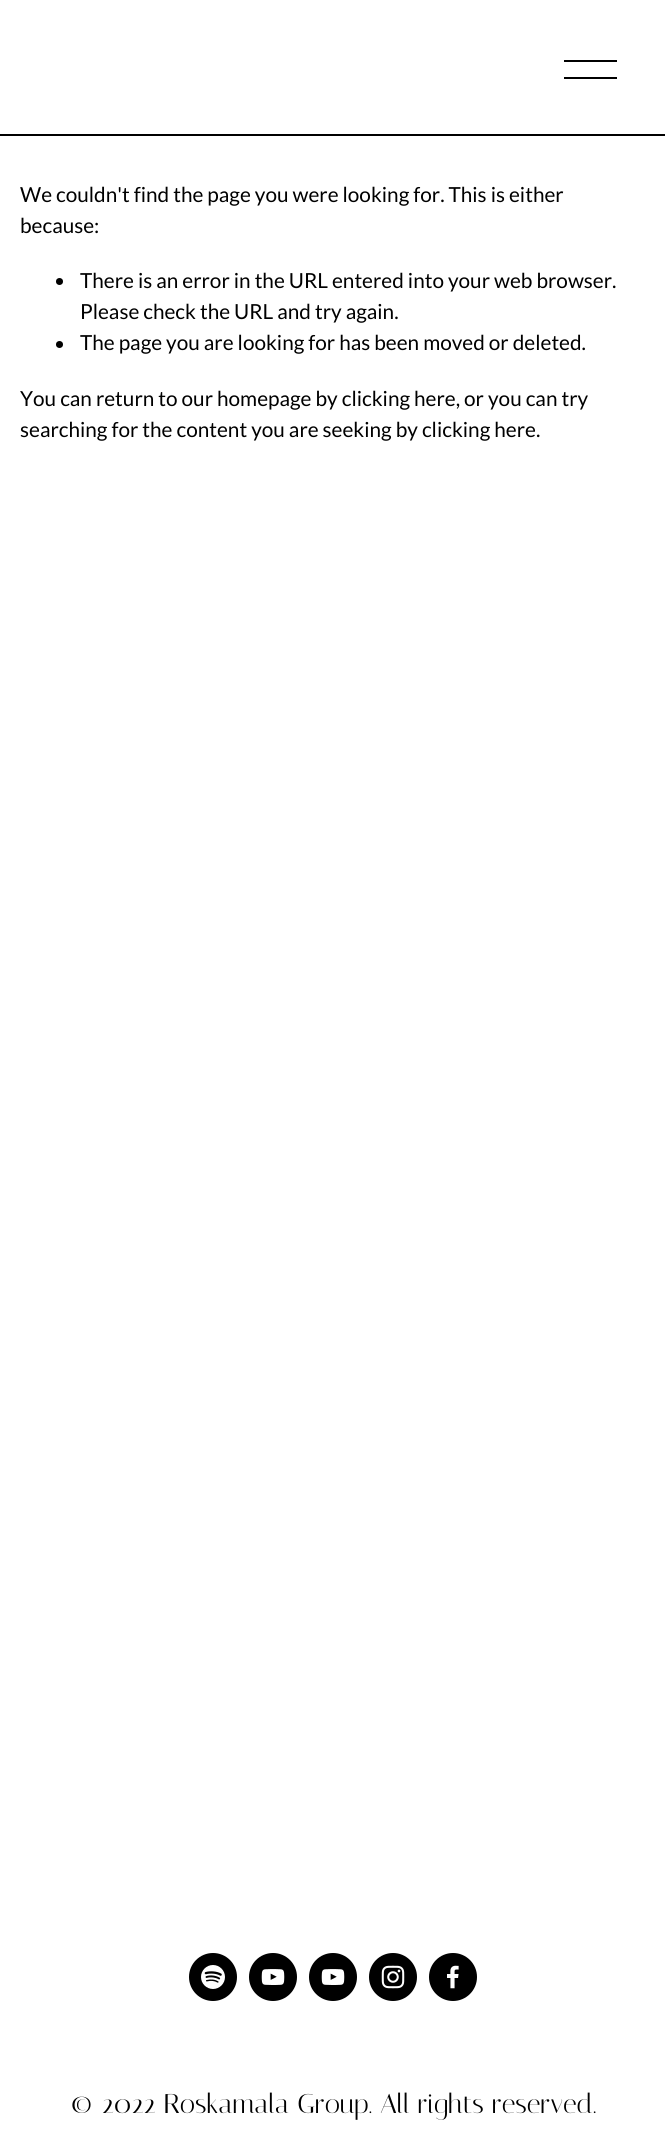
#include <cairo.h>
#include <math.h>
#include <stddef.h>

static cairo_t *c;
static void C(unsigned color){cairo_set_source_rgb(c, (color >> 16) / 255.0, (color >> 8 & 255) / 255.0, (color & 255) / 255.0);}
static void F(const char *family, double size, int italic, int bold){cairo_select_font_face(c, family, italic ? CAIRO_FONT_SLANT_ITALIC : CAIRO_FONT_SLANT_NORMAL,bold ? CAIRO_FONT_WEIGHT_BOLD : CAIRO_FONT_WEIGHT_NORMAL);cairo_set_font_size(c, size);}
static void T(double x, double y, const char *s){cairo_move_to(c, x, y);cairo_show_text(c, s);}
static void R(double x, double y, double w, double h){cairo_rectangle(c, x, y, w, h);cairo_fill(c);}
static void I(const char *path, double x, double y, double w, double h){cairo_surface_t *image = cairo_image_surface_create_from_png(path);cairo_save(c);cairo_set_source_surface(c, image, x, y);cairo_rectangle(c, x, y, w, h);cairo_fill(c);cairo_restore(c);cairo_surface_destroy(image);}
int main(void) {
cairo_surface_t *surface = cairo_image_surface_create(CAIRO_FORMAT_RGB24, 665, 2148);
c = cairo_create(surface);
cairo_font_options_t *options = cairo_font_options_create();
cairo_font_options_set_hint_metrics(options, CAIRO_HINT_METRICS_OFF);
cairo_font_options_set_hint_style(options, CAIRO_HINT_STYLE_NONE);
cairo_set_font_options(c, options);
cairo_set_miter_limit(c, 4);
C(0xffffff);
cairo_paint(c);
C(0x000000);
R(564,60,53,2);
R(564,77,53,2);
R(0,134,665,2);
F("Lato",20.75,0,0);
T(20,202,"We couldn't find the page you were looking for. This is either");
T(20,233,"because:");
cairo_new_path(c);
cairo_arc(c,59.5,281.5,3.5,0,2 * M_PI);
cairo_fill(c);
T(80,288,"There is an error in the URL entered into your web browser.");
T(80,319,"Please check the URL and try again.");
cairo_new_path(c);
cairo_arc(c,59.5,344.5,3.5,0,2 * M_PI);
cairo_fill(c);
T(80,350,"The page you are looking for has been moved or deleted.");
T(20,406,"You can return to our homepage by clicking here, or you can try");
T(20,437,"searching for the content you are seeking by clicking here.");
cairo_new_path(c);
cairo_arc(c,213,1977,24,0,2 * M_PI);
cairo_fill(c);
I("1.png",201,1965,24,24);
cairo_arc(c,273,1977,24,0,2 * M_PI);
cairo_fill(c);
I("2.png",261,1969,24,16);
cairo_arc(c,333,1977,24,0,2 * M_PI);
cairo_fill(c);
I("2.png",321,1969,24,16);
cairo_arc(c,393,1977,24,0,2 * M_PI);
cairo_fill(c);
I("3.png",381,1965,24,24);
cairo_arc(c,453,1977,24,0,2 * M_PI);
cairo_fill(c);
I("4.png",447,1965,12,24);
F("Italiana",27.25,0,0);
T(71,2113,"© 2022 Roskamala Group. All rights reserved.");
cairo_surface_write_to_png(surface, "o.png");
cairo_font_options_destroy(options);
cairo_destroy(c);
cairo_surface_destroy(surface);
return 0;
}
